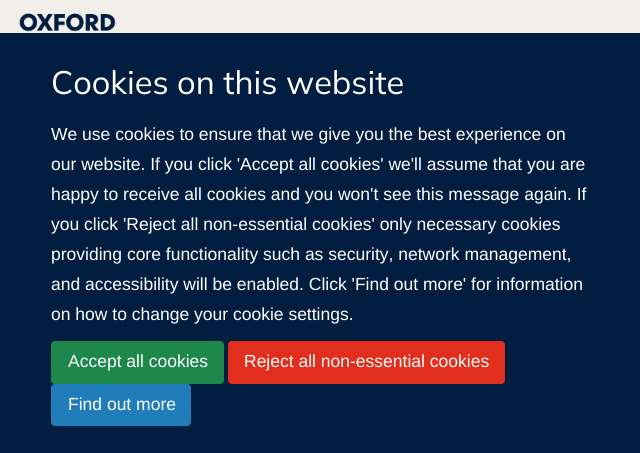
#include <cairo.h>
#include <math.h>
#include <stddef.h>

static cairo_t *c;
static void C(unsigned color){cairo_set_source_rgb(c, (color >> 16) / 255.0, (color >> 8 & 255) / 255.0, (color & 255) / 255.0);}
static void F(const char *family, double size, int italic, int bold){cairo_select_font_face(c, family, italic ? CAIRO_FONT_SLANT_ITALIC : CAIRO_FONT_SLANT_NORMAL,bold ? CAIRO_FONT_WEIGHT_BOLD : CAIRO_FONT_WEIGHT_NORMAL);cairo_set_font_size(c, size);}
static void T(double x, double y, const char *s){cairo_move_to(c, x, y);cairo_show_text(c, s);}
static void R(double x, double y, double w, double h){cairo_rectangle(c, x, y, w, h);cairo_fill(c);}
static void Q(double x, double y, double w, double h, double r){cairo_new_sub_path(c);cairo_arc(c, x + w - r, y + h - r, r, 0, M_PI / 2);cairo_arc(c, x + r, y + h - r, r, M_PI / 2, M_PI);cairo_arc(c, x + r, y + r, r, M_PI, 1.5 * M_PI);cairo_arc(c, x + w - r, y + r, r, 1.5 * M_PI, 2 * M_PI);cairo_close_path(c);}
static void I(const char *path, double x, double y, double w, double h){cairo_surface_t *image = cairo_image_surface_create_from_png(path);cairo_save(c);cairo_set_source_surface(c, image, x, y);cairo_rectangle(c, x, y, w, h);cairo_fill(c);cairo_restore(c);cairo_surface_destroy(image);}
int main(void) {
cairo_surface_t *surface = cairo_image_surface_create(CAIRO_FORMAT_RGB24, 640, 453);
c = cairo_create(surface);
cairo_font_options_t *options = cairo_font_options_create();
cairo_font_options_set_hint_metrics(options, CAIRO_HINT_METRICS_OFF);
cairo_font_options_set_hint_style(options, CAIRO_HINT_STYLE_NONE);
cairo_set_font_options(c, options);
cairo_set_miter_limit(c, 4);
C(0xf2efeb);
cairo_paint(c);
I("1.png",19,13,97,19);
C(0x011e41);
R(0,33,640,420);
F("Mulish",32.5,0,0);
C(0xffffff);
T(51,94,"Cookies on this website");
F("Liberation Sans",17.5,0,0);
T(51,140,"We use cookies to ensure that we give you the best experience on");
T(51,170,"our website. If you click 'Accept all cookies' we'll assume that you are");
T(51,200,"happy to receive all cookies and you won't see this message again. If");
T(51,230,"you click 'Reject all non-essential cookies' only necessary cookies");
T(51,260,"providing core functionality such as security, network management,");
T(51,290,"and accessibility will be enabled. Click 'Find out more' for information");
T(51,320,"on how to change your cookie settings.");
C(0x1e874b);
Q(51.5,341.5,172,42,3.5);
cairo_fill_preserve(c);
cairo_set_line_width(c,1);
cairo_stroke(c);
C(0xffffff);
T(68,367,"Accept all cookies");
C(0xe22e1c);
Q(228.5,341.5,276,42,3.5);
cairo_fill_preserve(c);
cairo_stroke(c);
C(0xffffff);
T(244,367,"Reject all non-essential cookies");
C(0x217cba);
Q(51.5,384.5,139,41,3.5);
cairo_fill_preserve(c);
cairo_stroke(c);
C(0xffffff);
T(68,410,"Find out more");
cairo_surface_write_to_png(surface, "o.png");
cairo_font_options_destroy(options);
cairo_destroy(c);
cairo_surface_destroy(surface);
return 0;
}
